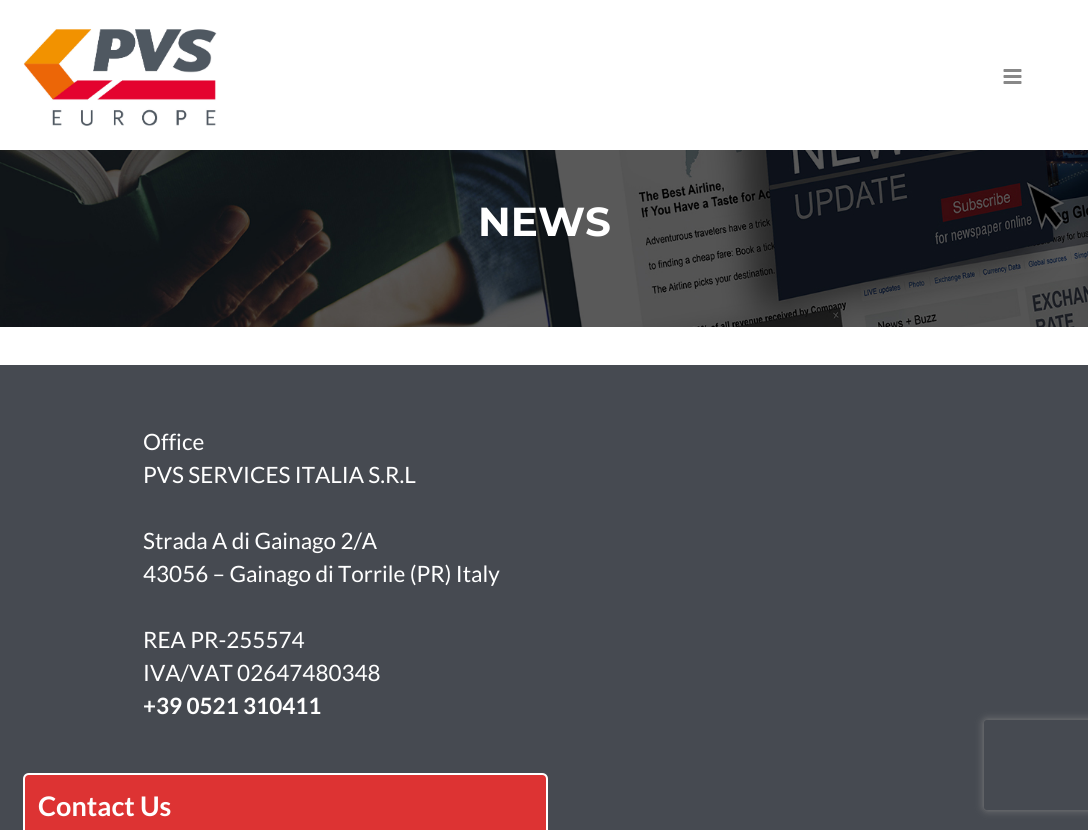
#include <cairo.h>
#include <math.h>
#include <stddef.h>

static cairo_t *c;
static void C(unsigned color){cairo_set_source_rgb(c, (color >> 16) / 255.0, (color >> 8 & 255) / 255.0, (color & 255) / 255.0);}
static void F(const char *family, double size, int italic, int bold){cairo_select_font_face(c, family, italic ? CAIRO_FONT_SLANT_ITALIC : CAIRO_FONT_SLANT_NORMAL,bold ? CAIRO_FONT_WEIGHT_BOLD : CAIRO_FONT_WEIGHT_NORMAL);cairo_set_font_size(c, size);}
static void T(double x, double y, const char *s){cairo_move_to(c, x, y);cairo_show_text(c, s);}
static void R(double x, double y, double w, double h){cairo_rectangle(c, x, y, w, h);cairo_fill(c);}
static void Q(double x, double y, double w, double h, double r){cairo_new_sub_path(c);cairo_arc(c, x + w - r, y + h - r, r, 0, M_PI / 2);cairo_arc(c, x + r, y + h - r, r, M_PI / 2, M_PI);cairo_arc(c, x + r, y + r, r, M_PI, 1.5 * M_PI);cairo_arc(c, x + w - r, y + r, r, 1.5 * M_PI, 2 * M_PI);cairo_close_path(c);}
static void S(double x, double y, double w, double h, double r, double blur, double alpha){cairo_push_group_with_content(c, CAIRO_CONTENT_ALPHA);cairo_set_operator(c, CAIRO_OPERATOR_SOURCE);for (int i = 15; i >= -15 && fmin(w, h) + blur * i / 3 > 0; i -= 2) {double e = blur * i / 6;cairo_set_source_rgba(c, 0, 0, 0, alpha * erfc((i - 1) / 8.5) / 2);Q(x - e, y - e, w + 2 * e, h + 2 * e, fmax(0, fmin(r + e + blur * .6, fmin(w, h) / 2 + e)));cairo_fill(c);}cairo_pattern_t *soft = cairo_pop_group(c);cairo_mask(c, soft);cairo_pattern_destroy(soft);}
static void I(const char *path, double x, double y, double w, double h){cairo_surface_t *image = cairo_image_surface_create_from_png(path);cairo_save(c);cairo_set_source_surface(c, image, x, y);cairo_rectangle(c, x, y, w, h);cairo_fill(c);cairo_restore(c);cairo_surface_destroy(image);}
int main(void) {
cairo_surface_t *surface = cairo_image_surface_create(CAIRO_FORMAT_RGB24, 1088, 830);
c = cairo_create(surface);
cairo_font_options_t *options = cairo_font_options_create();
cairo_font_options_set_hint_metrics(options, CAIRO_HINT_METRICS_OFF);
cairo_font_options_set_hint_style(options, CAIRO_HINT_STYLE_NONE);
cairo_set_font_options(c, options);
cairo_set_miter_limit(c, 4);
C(0xffffff);
cairo_paint(c);
I("1.png",23,29,194,97);
I("2.png",1003,69,19,15);
I("3.png",0,150,1088,177);
F("Montserrat",40.5,0,1);
C(0xffffff);
T(478,236,"NEWS");
C(0x464a51);
R(0,365,1088,465);
F("Lato",22.5,0,0);
C(0xffffff);
T(143,450,"Office");
T(143,483,"PVS SERVICES ITALIA S.R.L");
T(143,549,"Strada A di Gainago 2/A");
T(143,582,"43056 – Gainago di Torrile (PR) Italy");
T(143,648,"REA PR-255574");
T(143,681,"IVA/VAT 02647480348");
F("Lato",22.5,0,1);
T(143,714,"+39 0521 310411");
C(0xdd3333);
cairo_new_path(c);
cairo_move_to(c,29,774);
cairo_line_to(c,542,774);
cairo_curve_to(c,545,774,547,776,547,779);
cairo_line_to(c,547,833);
cairo_line_to(c,24,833);
cairo_line_to(c,24,779);
cairo_curve_to(c,24,776,26,774,29,774);
cairo_close_path(c);
cairo_fill_preserve(c);
C(0xffffff);
cairo_stroke(c);
F("Lato",27,0,1);
T(38,816,"Contact Us");
cairo_save(c);
cairo_set_fill_rule(c,CAIRO_FILL_RULE_EVEN_ODD);
cairo_new_path(c);
cairo_move_to(c,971,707);
cairo_line_to(c,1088,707);
cairo_line_to(c,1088,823);
cairo_line_to(c,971,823);
cairo_close_path(c);
cairo_move_to(c,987,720);
cairo_line_to(c,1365,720);
cairo_curve_to(c,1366.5,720,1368,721.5,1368,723);
cairo_line_to(c,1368,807);
cairo_curve_to(c,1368,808.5,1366.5,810,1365,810);
cairo_line_to(c,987,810);
cairo_curve_to(c,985.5,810,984,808.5,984,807);
cairo_line_to(c,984,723);
cairo_curve_to(c,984,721.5,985.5,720,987,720);
cairo_close_path(c);
cairo_clip(c);
C(0x808080);
S(984,720,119,90,3,4,1);
cairo_restore(c);
cairo_surface_write_to_png(surface, "o.png");
cairo_font_options_destroy(options);
cairo_destroy(c);
cairo_surface_destroy(surface);
return 0;
}
